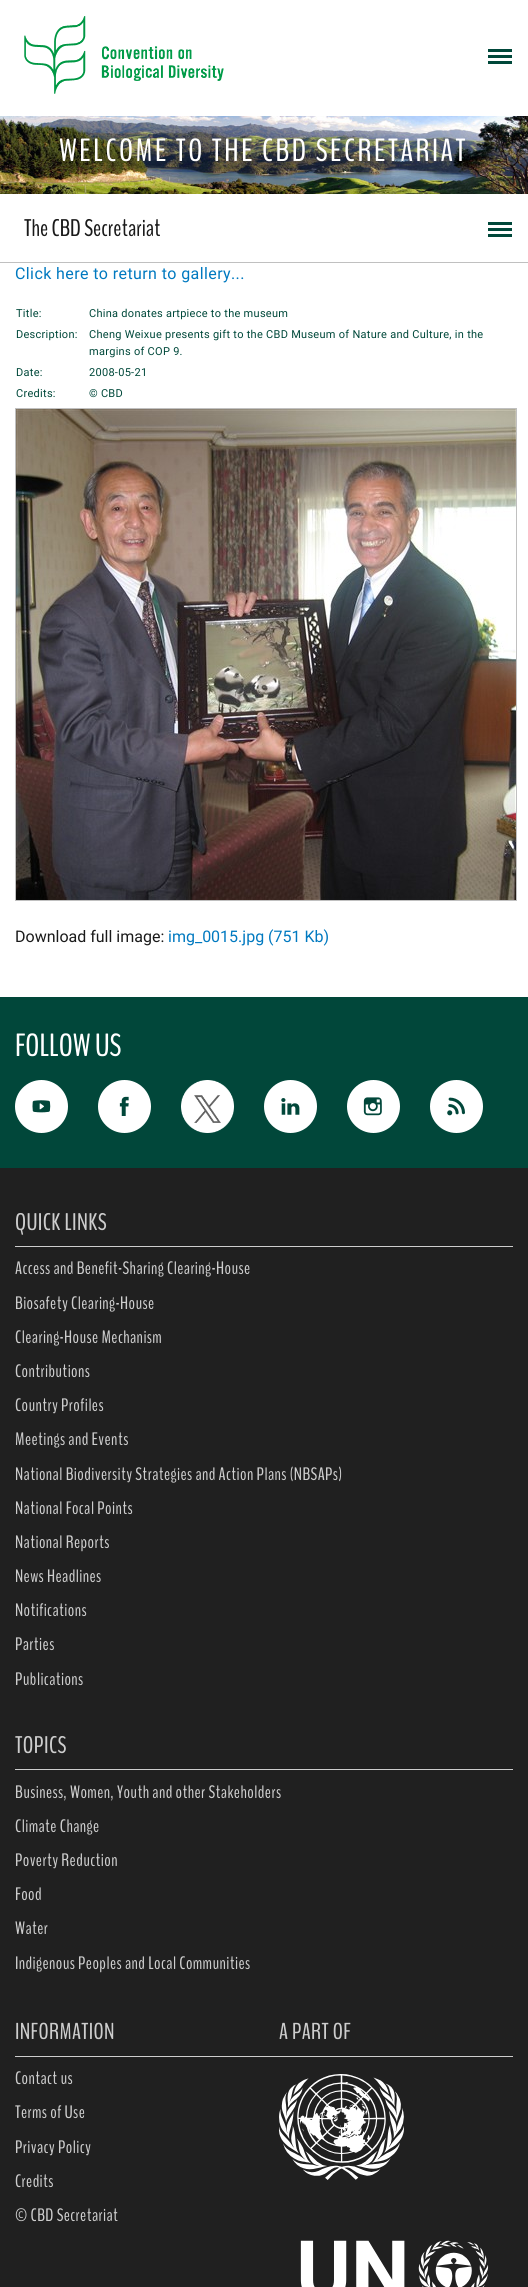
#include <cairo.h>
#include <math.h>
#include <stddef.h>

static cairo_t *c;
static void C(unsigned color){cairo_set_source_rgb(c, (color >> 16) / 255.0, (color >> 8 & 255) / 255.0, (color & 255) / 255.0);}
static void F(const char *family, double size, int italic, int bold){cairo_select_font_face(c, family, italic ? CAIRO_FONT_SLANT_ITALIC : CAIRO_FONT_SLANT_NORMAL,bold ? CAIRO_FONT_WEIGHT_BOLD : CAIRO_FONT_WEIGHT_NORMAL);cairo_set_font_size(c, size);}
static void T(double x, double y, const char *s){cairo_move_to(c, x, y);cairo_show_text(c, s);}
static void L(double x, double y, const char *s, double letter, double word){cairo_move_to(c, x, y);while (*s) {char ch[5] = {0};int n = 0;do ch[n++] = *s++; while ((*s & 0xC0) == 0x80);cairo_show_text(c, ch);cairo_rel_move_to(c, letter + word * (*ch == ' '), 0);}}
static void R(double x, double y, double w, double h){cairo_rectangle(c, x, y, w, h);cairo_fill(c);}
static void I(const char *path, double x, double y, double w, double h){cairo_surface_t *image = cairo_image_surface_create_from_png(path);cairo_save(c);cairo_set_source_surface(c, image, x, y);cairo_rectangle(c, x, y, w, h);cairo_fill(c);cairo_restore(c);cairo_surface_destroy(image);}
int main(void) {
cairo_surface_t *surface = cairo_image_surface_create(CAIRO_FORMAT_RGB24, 528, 2287);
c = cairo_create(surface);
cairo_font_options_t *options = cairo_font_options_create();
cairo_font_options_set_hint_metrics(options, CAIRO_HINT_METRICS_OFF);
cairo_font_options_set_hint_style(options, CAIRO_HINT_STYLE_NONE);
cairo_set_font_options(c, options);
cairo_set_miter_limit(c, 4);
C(0xffffff);
cairo_paint(c);
I("1.png",24,16,200,78);
C(0x00483a);
R(488,49,24,3);
R(488,55,24,3);
R(488,61,24,3);
I("2.png",0,116,528,78);
F("BenchNine",32,0,0);
C(0xffffff);
L(59,161,"WELCOME TO THE CBD SECRETARIAT",2.55,0);
C(0xc0c0c0);
R(0,262,528,1);
F("BenchNine",24,0,0);
C(0x1a1a1a);
T(24,236,"The CBD Secretariat");
C(0x00483a);
R(488,222,24,3);
R(488,228,24,3);
R(488,234,24,3);
F("Roboto",16,0,0);
C(0x0079c0);
L(15,279,"Click here to return to gallery...",.4,0);
F("Roboto",11,0,0);
C(0x00483a);
L(16,317,"Title:",.28,0);
L(89,317,"China donates artpiece to the museum",.28,0);
L(16,338,"Description:",.28,0);
L(89,338,"Cheng Weixue presents gift to the CBD Museum of Nature and Culture, in the",.28,0);
L(89,355,"margins of COP 9.",.28,0);
L(16,376,"Date:",.28,0);
L(89,376,"2008-05-21",.28,0);
L(16,397,"Credits:",.28,0);
L(89,397,"© CBD",.28,0);
cairo_rectangle(c,15.5,408.5,501,492);
C(0xc0c0c0);
cairo_set_line_width(c,1);
cairo_stroke(c);
I("3.png",16,409,500,491);
F("Roboto",16,0,0);
C(0x1a1a1a);
T(15,942,"Download full image:");
C(0x0079c0);
T(168,942,"img_0015.jpg (751 Kb)");
C(0x01473a);
R(0,997,528,171);
F("BenchNine",32,0,0);
C(0xffffff);
T(15,1056,"FOLLOW US");
I("4.png",15,1080,53,53);
I("5.png",98,1080,53,53);
I("6.png",181,1080,53,53);
I("7.png",264,1080,53,53);
I("8.png",347,1080,53,53);
I("9.png",430,1080,53,53);
C(0x202020);
R(0,1168,528,1119);
F("BenchNine",24,0,0);
C(0xcdcdcd);
L(15,1230,"QUICK LINKS",.4,0);
C(0x1d1d1d);
R(15,1245,498,1);
C(0xcdcdcd);
R(15,1246,498,1);
F("BenchNine",18,0,0);
L(15,1274,"Access and Benefit-Sharing Clearing-House",.4,0);
L(15,1309,"Biosafety Clearing-House",.4,0);
L(15,1343,"Clearing-House Mechanism",.4,0);
L(15,1377,"Contributions",.4,0);
L(15,1411,"Country Profiles",.4,0);
L(15,1445,"Meetings and Events",.4,0);
L(15,1480,"National Biodiversity Strategies and Action Plans (NBSAPs)",.4,0);
L(15,1514,"National Focal Points",.4,0);
L(15,1548,"National Reports",.4,0);
L(15,1582,"News Headlines",.4,0);
L(15,1616,"Notifications",.4,0);
L(15,1650,"Parties",.4,0);
L(15,1685,"Publications",.4,0);
F("BenchNine",24,0,0);
L(15,1753,"TOPICS",.4,0);
C(0x1d1d1d);
R(15,1768,498,1);
C(0xcdcdcd);
R(15,1769,498,1);
F("BenchNine",18,0,0);
L(15,1798,"Business, Women, Youth and other Stakeholders",.4,0);
L(15,1832,"Climate Change",.4,0);
L(15,1866,"Poverty Reduction",.4,0);
L(15,1900,"Food",.4,0);
L(15,1934,"Water",.4,0);
L(15,1969,"Indigenous Peoples and Local Communities",.4,0);
F("BenchNine",23,0,0);
L(15,2039,"INFORMATION",.4,0);
L(279,2039,"A PART OF",.4,0);
C(0x1d1d1d);
R(15,2055,498,1);
C(0xcdcdcd);
R(15,2056,498,1);
F("BenchNine",18,0,0);
L(15,2084,"Contact us",.4,0);
L(15,2118,"Terms of Use",.4,0);
L(15,2153,"Privacy Policy",.4,0);
L(15,2187,"Credits",.4,0);
L(15,2221,"© CBD Secretariat",.4,0);
I("10.png",279,2074,125,106);
I("11.png",300,2240,189,47);
cairo_surface_write_to_png(surface, "o.png");
cairo_font_options_destroy(options);
cairo_destroy(c);
cairo_surface_destroy(surface);
return 0;
}
